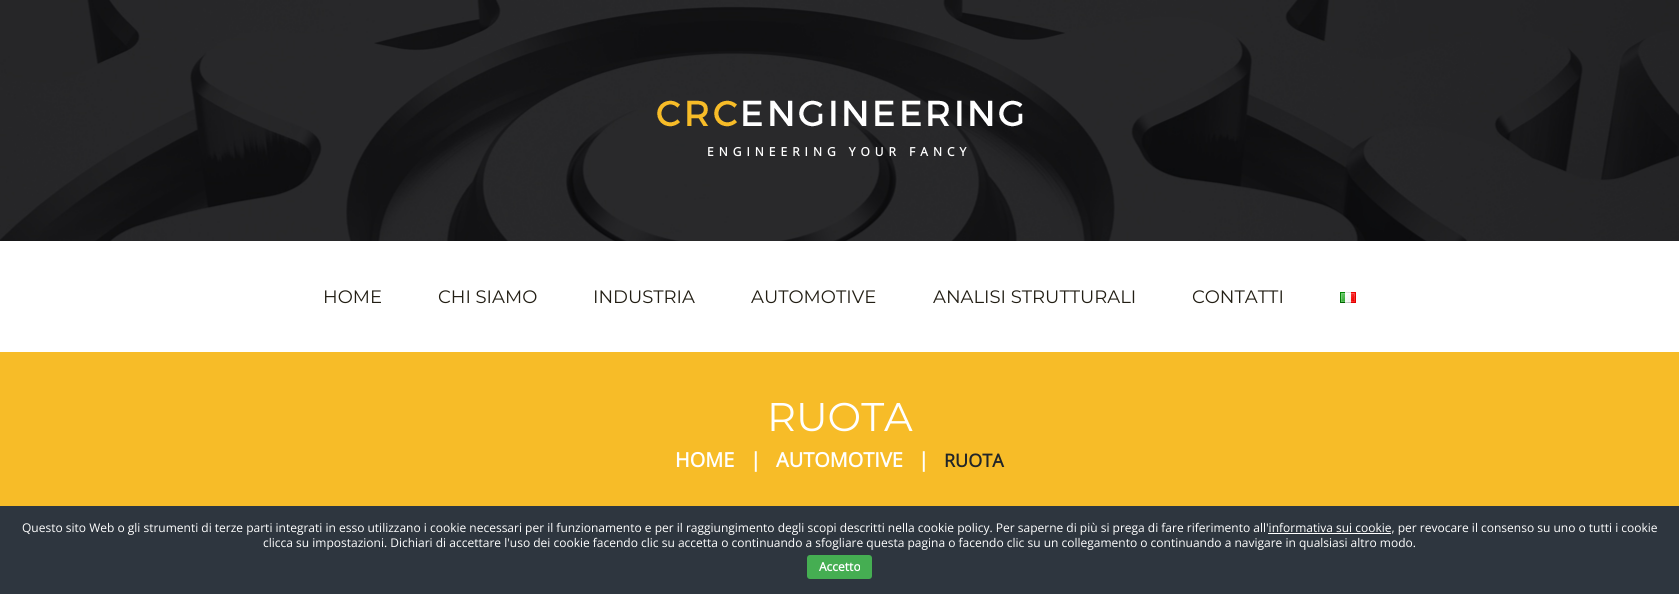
#include <cairo.h>
#include <math.h>
#include <stddef.h>

static cairo_t *c;
static void C(unsigned color){cairo_set_source_rgb(c, (color >> 16) / 255.0, (color >> 8 & 255) / 255.0, (color & 255) / 255.0);}
static void F(const char *family, double size, int italic, int bold){cairo_select_font_face(c, family, italic ? CAIRO_FONT_SLANT_ITALIC : CAIRO_FONT_SLANT_NORMAL,bold ? CAIRO_FONT_WEIGHT_BOLD : CAIRO_FONT_WEIGHT_NORMAL);cairo_set_font_size(c, size);}
static void T(double x, double y, const char *s){cairo_move_to(c, x, y);cairo_show_text(c, s);}
static void L(double x, double y, const char *s, double letter, double word){cairo_move_to(c, x, y);while (*s) {char ch[5] = {0};int n = 0;do ch[n++] = *s++; while ((*s & 0xC0) == 0x80);cairo_show_text(c, ch);cairo_rel_move_to(c, letter + word * (*ch == ' '), 0);}}
static void R(double x, double y, double w, double h){cairo_rectangle(c, x, y, w, h);cairo_fill(c);}
static void Q(double x, double y, double w, double h, double r){cairo_new_sub_path(c);cairo_arc(c, x + w - r, y + h - r, r, 0, M_PI / 2);cairo_arc(c, x + r, y + h - r, r, M_PI / 2, M_PI);cairo_arc(c, x + r, y + r, r, M_PI, 1.5 * M_PI);cairo_arc(c, x + w - r, y + r, r, 1.5 * M_PI, 2 * M_PI);cairo_close_path(c);}
static void I(const char *path, double x, double y, double w, double h){cairo_surface_t *image = cairo_image_surface_create_from_png(path);cairo_save(c);cairo_set_source_surface(c, image, x, y);cairo_rectangle(c, x, y, w, h);cairo_fill(c);cairo_restore(c);cairo_surface_destroy(image);}
int main(void) {
cairo_surface_t *surface = cairo_image_surface_create(CAIRO_FORMAT_RGB24, 1679, 594);
c = cairo_create(surface);
cairo_font_options_t *options = cairo_font_options_create();
cairo_font_options_set_hint_metrics(options, CAIRO_HINT_METRICS_OFF);
cairo_font_options_set_hint_style(options, CAIRO_HINT_STYLE_NONE);
cairo_set_font_options(c, options);
cairo_set_miter_limit(c, 4);
C(0xf7bc28);
cairo_paint(c);
I("1.png",0,0,1679,241);
I("2.png",657,100,366,27);
F("Open Sans",12,0,1);
C(0xffffff);
L(707,156,"ENGINEERING YOUR FANCY",5,0);
R(0,241,1679,111);
F("Montserrat Thin",18,0,0);
C(0x221e14);
T(323,303,"HOME");
T(438,303,"CHI SIAMO");
T(593,303,"INDUSTRIA");
T(751,303,"AUTOMOTIVE");
T(933,303,"ANALISI STRUTTURALI");
T(1192,303,"CONTATTI");
I("3.png",1340,292,16,11);
F("Montserrat Thin",40,0,0);
C(0xffffff);
T(767,431,"RUOTA");
F("Open Sans",20,0,1);
T(675,467,"HOME");
T(750,467,"|");
T(776,467,"AUTOMOTIVE");
T(918,467,"|");
F("Open Sans",18,0,1);
C(0x212529);
T(944,467,"RUOTA");
C(0x2e363f);
R(0,506,1679,88);
F("Open Sans",12,0,0);
C(0xffffff);
T(22,532,"Questo sito Web o gli strumenti di terze parti integrati in esso utilizzano i cookie necessari per il funzionamento e per il raggiungimento degli scopi descritti nella cookie policy. Per saperne di più si prega di fare riferimento all'informativa sui cookie, per revocare il consenso su uno o tutti i cookie");
R(1268,533,123,1);
T(263,547,"clicca su impostazioni. Dichiari di accettare l'uso dei cookie facendo clic su accetta o continuando a sfogliare questa pagina o facendo clic su un collegamento o continuando a navigare in qualsiasi altro modo.");
C(0x45ae52);
Q(807,555,65,24,3);
cairo_fill(c);
F("Open Sans",12,0,1);
C(0xffffff);
T(819,571,"Accetto");
cairo_surface_write_to_png(surface, "o.png");
cairo_font_options_destroy(options);
cairo_destroy(c);
cairo_surface_destroy(surface);
return 0;
}
